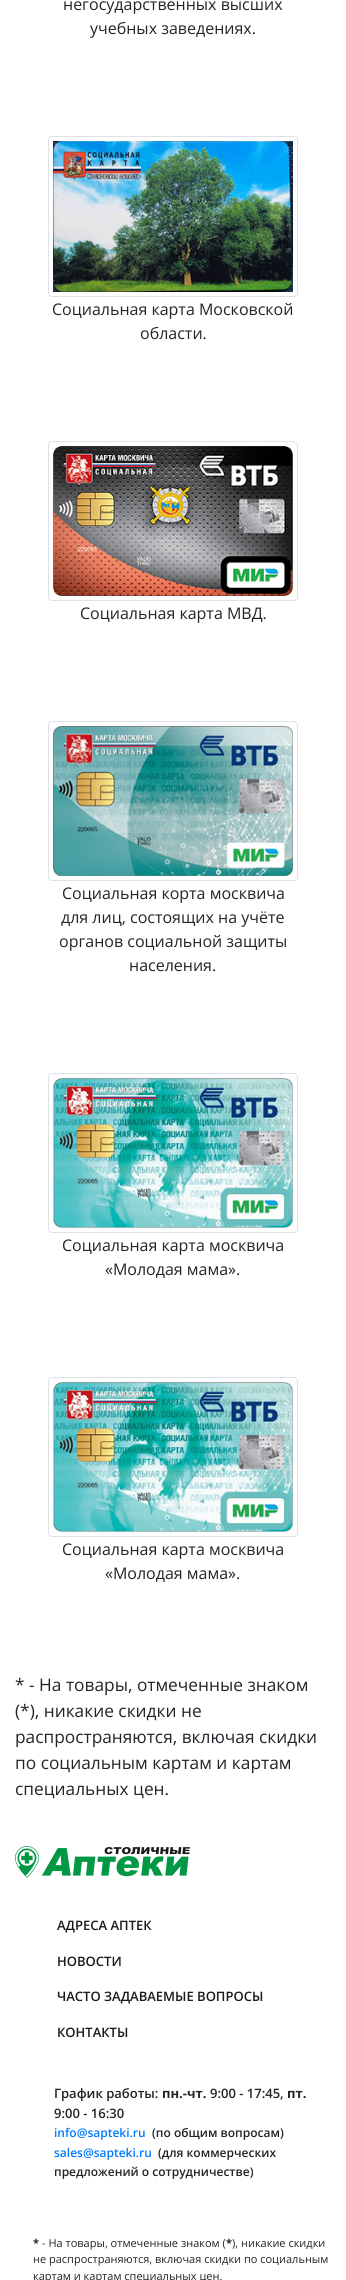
#include <cairo.h>
#include <math.h>
#include <stddef.h>

static cairo_t *c;
static void C(unsigned color){cairo_set_source_rgb(c, (color >> 16) / 255.0, (color >> 8 & 255) / 255.0, (color & 255) / 255.0);}
static void F(const char *family, double size, int italic, int bold){cairo_select_font_face(c, family, italic ? CAIRO_FONT_SLANT_ITALIC : CAIRO_FONT_SLANT_NORMAL,bold ? CAIRO_FONT_WEIGHT_BOLD : CAIRO_FONT_WEIGHT_NORMAL);cairo_set_font_size(c, size);}
static void T(double x, double y, const char *s){cairo_move_to(c, x, y);cairo_show_text(c, s);}
static void Q(double x, double y, double w, double h, double r){cairo_new_sub_path(c);cairo_arc(c, x + w - r, y + h - r, r, 0, M_PI / 2);cairo_arc(c, x + r, y + h - r, r, M_PI / 2, M_PI);cairo_arc(c, x + r, y + r, r, M_PI, 1.5 * M_PI);cairo_arc(c, x + w - r, y + r, r, 1.5 * M_PI, 2 * M_PI);cairo_close_path(c);}
static void I(const char *path, double x, double y, double w, double h){cairo_surface_t *image = cairo_image_surface_create_from_png(path);cairo_save(c);cairo_set_source_surface(c, image, x, y);cairo_rectangle(c, x, y, w, h);cairo_fill(c);cairo_restore(c);cairo_surface_destroy(image);}
int main(void) {
cairo_surface_t *surface = cairo_image_surface_create(CAIRO_FORMAT_RGB24, 346, 2280);
c = cairo_create(surface);
cairo_font_options_t *options = cairo_font_options_create();
cairo_font_options_set_hint_metrics(options, CAIRO_HINT_METRICS_OFF);
cairo_font_options_set_hint_style(options, CAIRO_HINT_STYLE_NONE);
cairo_set_font_options(c, options);
cairo_set_miter_limit(c, 4);
C(0xffffff);
cairo_paint(c);
F("Open Sans",16,0,0);
C(0x212529);
T(63,10,"негосударственных высших");
T(90,34,"учебных заведениях.");
Q(48.5,136.5,249,160,3.5);
C(0xdee2e6);
cairo_set_line_width(c,1);
cairo_stroke(c);
I("1.png",53,141,240,151);
C(0x212529);
T(52,315,"Социальная карта Московской");
T(140,339,"области.");
Q(48.5,441.5,249,159,3.5);
C(0xdee2e6);
cairo_stroke(c);
I("2.png",53,446,240,150);
C(0x212529);
T(80,619,"Социальная карта МВД.");
Q(48.5,721.5,249,159,3.5);
C(0xdee2e6);
cairo_stroke(c);
I("3.png",53,726,240,150);
C(0x212529);
T(62,899,"Социальная корта москвича");
T(61,923,"для лиц, состоящих на учёте");
T(59,947,"органов социальной защиты");
T(129,971,"населения.");
Q(48.5,1073.5,249,159,3.5);
C(0xdee2e6);
cairo_stroke(c);
I("4.png",53,1078,240,150);
C(0x212529);
T(62,1251,"Социальная карта москвича");
T(105,1275,"«Молодая мама».");
Q(48.5,1377.5,249,159,3.5);
C(0xdee2e6);
cairo_stroke(c);
I("5.png",53,1382,240,150);
C(0x212529);
T(62,1555,"Социальная карта москвича");
T(105,1579,"«Молодая мама».");
F("Open Sans",17.3,0,0);
T(15,1691,"* - На товары, отмеченные знаком");
T(15,1717,"(*), никакие скидки не");
T(15,1743,"распространяются, включая скидки");
T(15,1769,"по социальным картам и картам");
T(15,1795,"специальных цен.");
I("6.png",15,1846,175,32);
F("Open Sans SemiBold",13,0,0);
C(0x1a1a1a);
T(57,1930,"АДРЕСА АПТЕК");
T(57,1966,"НОВОСТИ");
T(57,2001,"ЧАСТО ЗАДАВАЕМЫЕ ВОПРОСЫ");
T(57,2037,"КОНТАКТЫ");
C(0x212529);
T(54,2098,"График работы:");
F("Open Sans",13,0,1);
T(162,2098,"пн.-чт.");
F("Open Sans SemiBold",13,0,0);
T(210,2098,"9:00 - 17:45,");
F("Open Sans",13,0,1);
T(287,2098,"пт.");
F("Open Sans SemiBold",13,0,0);
T(54,2118,"9:00 - 16:30");
F("Open Sans SemiBold",12,0,0);
C(0x007bff);
T(54,2137,"info@sapteki.ru");
C(0x212529);
T(152,2137,"(по общим вопросам)");
C(0x007bff);
T(54,2157,"sales@sapteki.ru");
C(0x212529);
T(158,2157,"(для коммерческих");
T(54,2176,"предложений о сотрудничестве)");
F("Open Sans",11,0,1);
T(33,2247,"*");
F("Open Sans",11,0,0);
T(42,2247,"- На товары, отмеченные знаком (");
F("Open Sans",11,0,1);
T(226,2247,"*");
F("Open Sans",11,0,0);
T(232,2247,"), никакие скидки");
T(33,2263,"не распространяются, включая скидки по социальным");
T(33,2280,"картам и картам специальных цен.");
cairo_surface_write_to_png(surface, "o.png");
cairo_font_options_destroy(options);
cairo_destroy(c);
cairo_surface_destroy(surface);
return 0;
}
